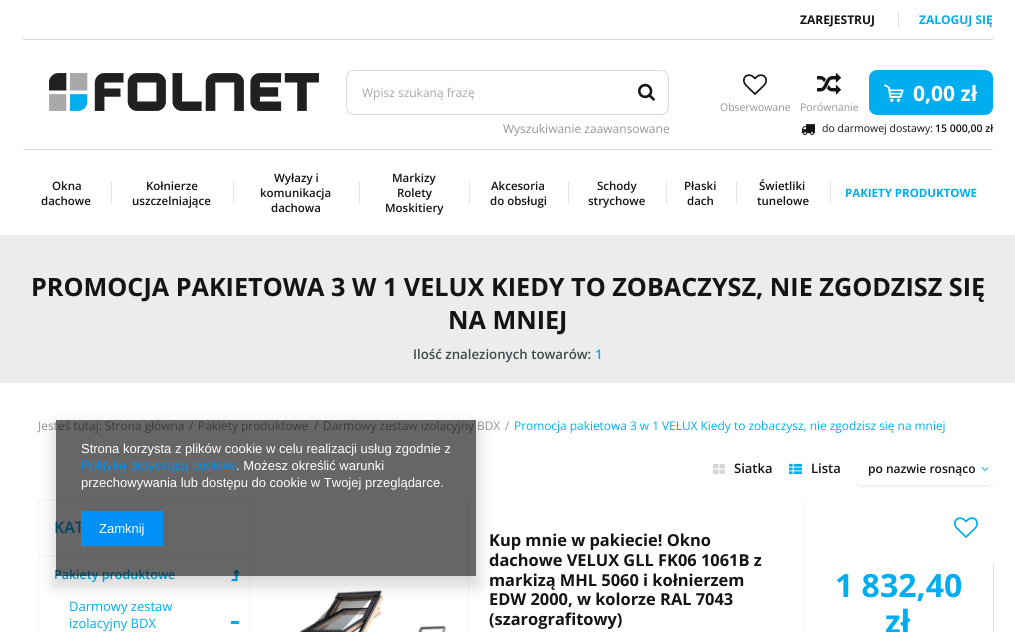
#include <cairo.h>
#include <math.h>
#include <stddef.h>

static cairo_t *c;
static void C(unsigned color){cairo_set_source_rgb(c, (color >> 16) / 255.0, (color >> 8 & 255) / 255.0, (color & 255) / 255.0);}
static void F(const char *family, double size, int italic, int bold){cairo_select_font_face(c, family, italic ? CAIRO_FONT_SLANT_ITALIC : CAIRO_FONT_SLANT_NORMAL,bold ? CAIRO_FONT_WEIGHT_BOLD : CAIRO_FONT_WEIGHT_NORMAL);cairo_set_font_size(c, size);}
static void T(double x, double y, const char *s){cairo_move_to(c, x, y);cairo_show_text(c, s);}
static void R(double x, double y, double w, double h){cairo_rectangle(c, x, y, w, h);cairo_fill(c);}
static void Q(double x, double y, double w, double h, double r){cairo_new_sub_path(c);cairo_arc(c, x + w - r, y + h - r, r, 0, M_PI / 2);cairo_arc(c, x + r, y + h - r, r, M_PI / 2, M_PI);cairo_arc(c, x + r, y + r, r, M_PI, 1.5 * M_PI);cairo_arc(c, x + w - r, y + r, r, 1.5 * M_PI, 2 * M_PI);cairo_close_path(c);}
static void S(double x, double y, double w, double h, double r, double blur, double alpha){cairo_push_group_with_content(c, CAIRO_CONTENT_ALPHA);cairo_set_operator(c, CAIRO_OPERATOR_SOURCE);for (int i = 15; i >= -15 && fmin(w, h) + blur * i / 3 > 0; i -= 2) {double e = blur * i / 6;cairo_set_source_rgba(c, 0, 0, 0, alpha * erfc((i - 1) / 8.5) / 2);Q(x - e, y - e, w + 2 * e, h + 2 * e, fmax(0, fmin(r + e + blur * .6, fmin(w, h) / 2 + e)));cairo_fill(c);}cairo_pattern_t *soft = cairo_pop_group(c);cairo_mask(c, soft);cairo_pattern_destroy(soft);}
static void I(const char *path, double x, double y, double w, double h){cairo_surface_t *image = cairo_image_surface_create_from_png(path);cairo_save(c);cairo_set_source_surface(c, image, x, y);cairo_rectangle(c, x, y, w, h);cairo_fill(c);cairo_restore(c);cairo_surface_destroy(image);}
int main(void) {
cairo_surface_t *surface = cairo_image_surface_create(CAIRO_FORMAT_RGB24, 1015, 632);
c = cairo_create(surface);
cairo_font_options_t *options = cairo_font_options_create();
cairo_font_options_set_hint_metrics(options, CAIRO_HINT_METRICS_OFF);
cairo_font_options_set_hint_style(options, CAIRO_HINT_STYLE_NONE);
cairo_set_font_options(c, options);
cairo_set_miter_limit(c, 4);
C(0xffffff);
cairo_paint(c);
C(0xdadada);
R(23,39,970,1);
F("Open Sans",12,0,1);
C(0x141414);
T(800,24,"ZAREJESTRUJ");
C(0x00adef);
T(919,24,"ZALOGUJ SIĘ");
C(0xe0e0e0);
R(898,11,1,17);
I("1.png",49,73,270,38);
Q(346.5,70.5,322,44,7.5);
C(0xdadada);
cairo_set_line_width(c,1);
cairo_stroke(c);
F("Open Sans",12,0,0);
C(0xa6a6a6);
T(362,97,"Wpisz szukaną frazę");
I("2.png",638,83,17,18);
C(0x959595);
T(503,133,"Wyszukiwanie zaawansowane");
C(0x00adef);
Q(869,70,124,45,8);
cairo_fill(c);
I("3.png",884,84,20,18);
F("Open Sans",21,0,1);
C(0xffffff);
T(913,101,"0,00 zł");
I("4.png",743,74,24,21);
F("Open Sans",10.5,0,0);
C(0x959595);
T(720,111,"Obserwowane");
I("5.png",817,73,24,22);
T(800,111,"Porównanie");
I("6.png",801,124,14,12);
C(0x141414);
T(822,132,"do darmowej dostawy:");
F("Open Sans SemiBold",10.5,0,0);
T(935,132,"15 000,00 zł");
C(0xdadada);
R(23,149,970,1);
F("Open Sans SemiBold",11.5,0,0);
C(0x141414);
T(52,190,"Okna");
T(41,205,"dachowe");
C(0xe6e6e6);
R(111,182,1,22);
C(0x141414);
T(146,190,"Kołnierze");
T(132,205,"uszczelniające");
C(0xe6e6e6);
R(233,182,1,22);
C(0x141414);
T(274,182,"Wyłazy i");
T(260,197,"komunikacja");
T(271,212,"dachowa");
C(0xe6e6e6);
R(359,182,1,22);
C(0x141414);
T(392,182,"Markizy");
T(397,197,"Rolety");
T(385,212,"Moskitiery");
C(0xe6e6e6);
R(469,182,1,22);
C(0x141414);
T(491,190,"Akcesoria");
T(490,205,"do obsługi");
C(0xe6e6e6);
R(568,182,1,22);
C(0x141414);
T(597,190,"Schody");
T(588,205,"strychowe");
C(0xe6e6e6);
R(666,182,1,22);
C(0x141414);
T(684,190,"Płaski");
T(687,205,"dach");
C(0xe6e6e6);
R(736,182,1,22);
C(0x141414);
T(759,190,"Świetliki");
T(757,205,"tunelowe");
C(0xe6e6e6);
R(830,182,1,22);
F("Open Sans",11.5,0,1);
C(0x00adef);
T(845,197,"PAKIETY PRODUKTOWE");
C(0xececec);
R(0,235,1015,148);
F("Open Sans",25.2,0,1);
C(0x141414);
T(31,296,"PROMOCJA PAKIETOWA 3 W 1 VELUX KIEDY TO ZOBACZYSZ, NIE ZGODZISZ SIĘ");
T(448,329,"NA MNIEJ");
F("Open Sans SemiBold",13.25,0,0);
C(0x3f494c);
T(413,359,"Ilość znalezionych towarów:");
C(0x00adef);
T(595,359,"1");
F("Open Sans",11.9,0,0);
C(0x959595);
T(38,430,"Jesteś tutaj: Strona główna");
T(189,430,"/");
T(198,430,"Pakiety produktowe");
T(314,430,"/");
T(323,430,"Darmowy zestaw izolacyjny BDX");
T(505,430,"/");
C(0x00adef);
T(514,430,"Promocja pakietowa 3 w 1 VELUX Kiedy to zobaczysz, nie zgodzisz się na mniej");
I("7.png",713,463,12,11);
F("Open Sans SemiBold",13,0,0);
C(0x141414);
T(734,473,"Siatka");
I("8.png",789,463,13,12);
T(811,473,"Lista");
C(0xf1f1f1);
cairo_new_path(c);
cairo_move_to(c,856,479);
cairo_line_to(c,856,481);
cairo_curve_to(c,856,484,859,487,862,487);
cairo_line_to(c,987,487);
cairo_curve_to(c,990,487,993,484,993,481);
cairo_line_to(c,993,479);
cairo_curve_to(c,993,482,990,485,987,485);
cairo_line_to(c,862,485);
cairo_curve_to(c,859,485,856,482,856,479);
cairo_close_path(c);
cairo_fill(c);
C(0xffffff);
Q(856,453,137,32,6);
cairo_fill(c);
F("Open Sans SemiBold",12,0,0);
C(0x141414);
T(868,473,"po nazwie rosnąco");
I("9.png",981,467,8,4);
cairo_rectangle(c,38.5,500.5,211,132);
C(0xf5f2ef);
cairo_stroke(c);
F("Open Sans SemiBold",16,0,0);
C(0x00adef);
T(54,533,"KAT");
C(0xf5f2ef);
R(39,556,210,1);
F("Open Sans SemiBold",12.5,0,0);
C(0x00adef);
T(54,579,"Pakiety produktowe");
I("10.png",231,569,9,13);
F("Open Sans",13,0,0);
T(69,611,"Darmowy zestaw");
T(69,628,"izolacyjny BDX");
R(231,621,8,3);
C(0xf4f4f4);
R(468,500,1,132);
I("11.png",299,590,148,42);
R(803,500,1,132);
F("Open Sans",16.4,0,1);
C(0x141414);
T(489,546,"Kup mnie w pakiecie! Okno");
T(489,566,"dachowe VELUX GLL FK06 1061B z");
T(489,586,"markizą MHL 5060 i kołnierzem");
T(489,605,"EDW 2000, w kolorze RAL 7043");
T(489,625,"(szarografitowy)");
I("12.png",954,517,24,21);
F("Open Sans",32,0,1);
C(0x00adef);
T(835,597,"1 832,40");
T(885,633,"zł");
C(0xdadada);
R(993,564,1,68);
cairo_save(c);
cairo_set_fill_rule(c,CAIRO_FILL_RULE_EVEN_ODD);
cairo_new_path(c);
cairo_move_to(c,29,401);
cairo_line_to(c,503,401);
cairo_line_to(c,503,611);
cairo_line_to(c,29,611);
cairo_close_path(c);
cairo_move_to(c,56,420);
cairo_line_to(c,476,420);
cairo_line_to(c,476,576);
cairo_line_to(c,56,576);
cairo_close_path(c);
cairo_clip(c);
C(0x000000);
S(53,425,426,162,0,7.5,.15);
cairo_restore(c);
cairo_set_source_rgba(c,0,0,0,0.6);
R(56,420,420,156);
F("Liberation Sans",13,0,0);
C(0xffffff);
T(81,453,"Strona korzysta z plików cookie w celu realizacji usług zgodnie z");
C(0x0090f6);
T(81,470,"Polityką dotyczącą cookies");
C(0xffffff);
T(236,470,". Możesz określić warunki");
T(81,487,"przechowywania lub dostępu do cookie w Twojej przeglądarce.");
C(0x0090f6);
R(81,511,82,35);
C(0xffffff);
T(99,533,"Zamknij");
cairo_surface_write_to_png(surface, "o.png");
cairo_font_options_destroy(options);
cairo_destroy(c);
cairo_surface_destroy(surface);
return 0;
}
